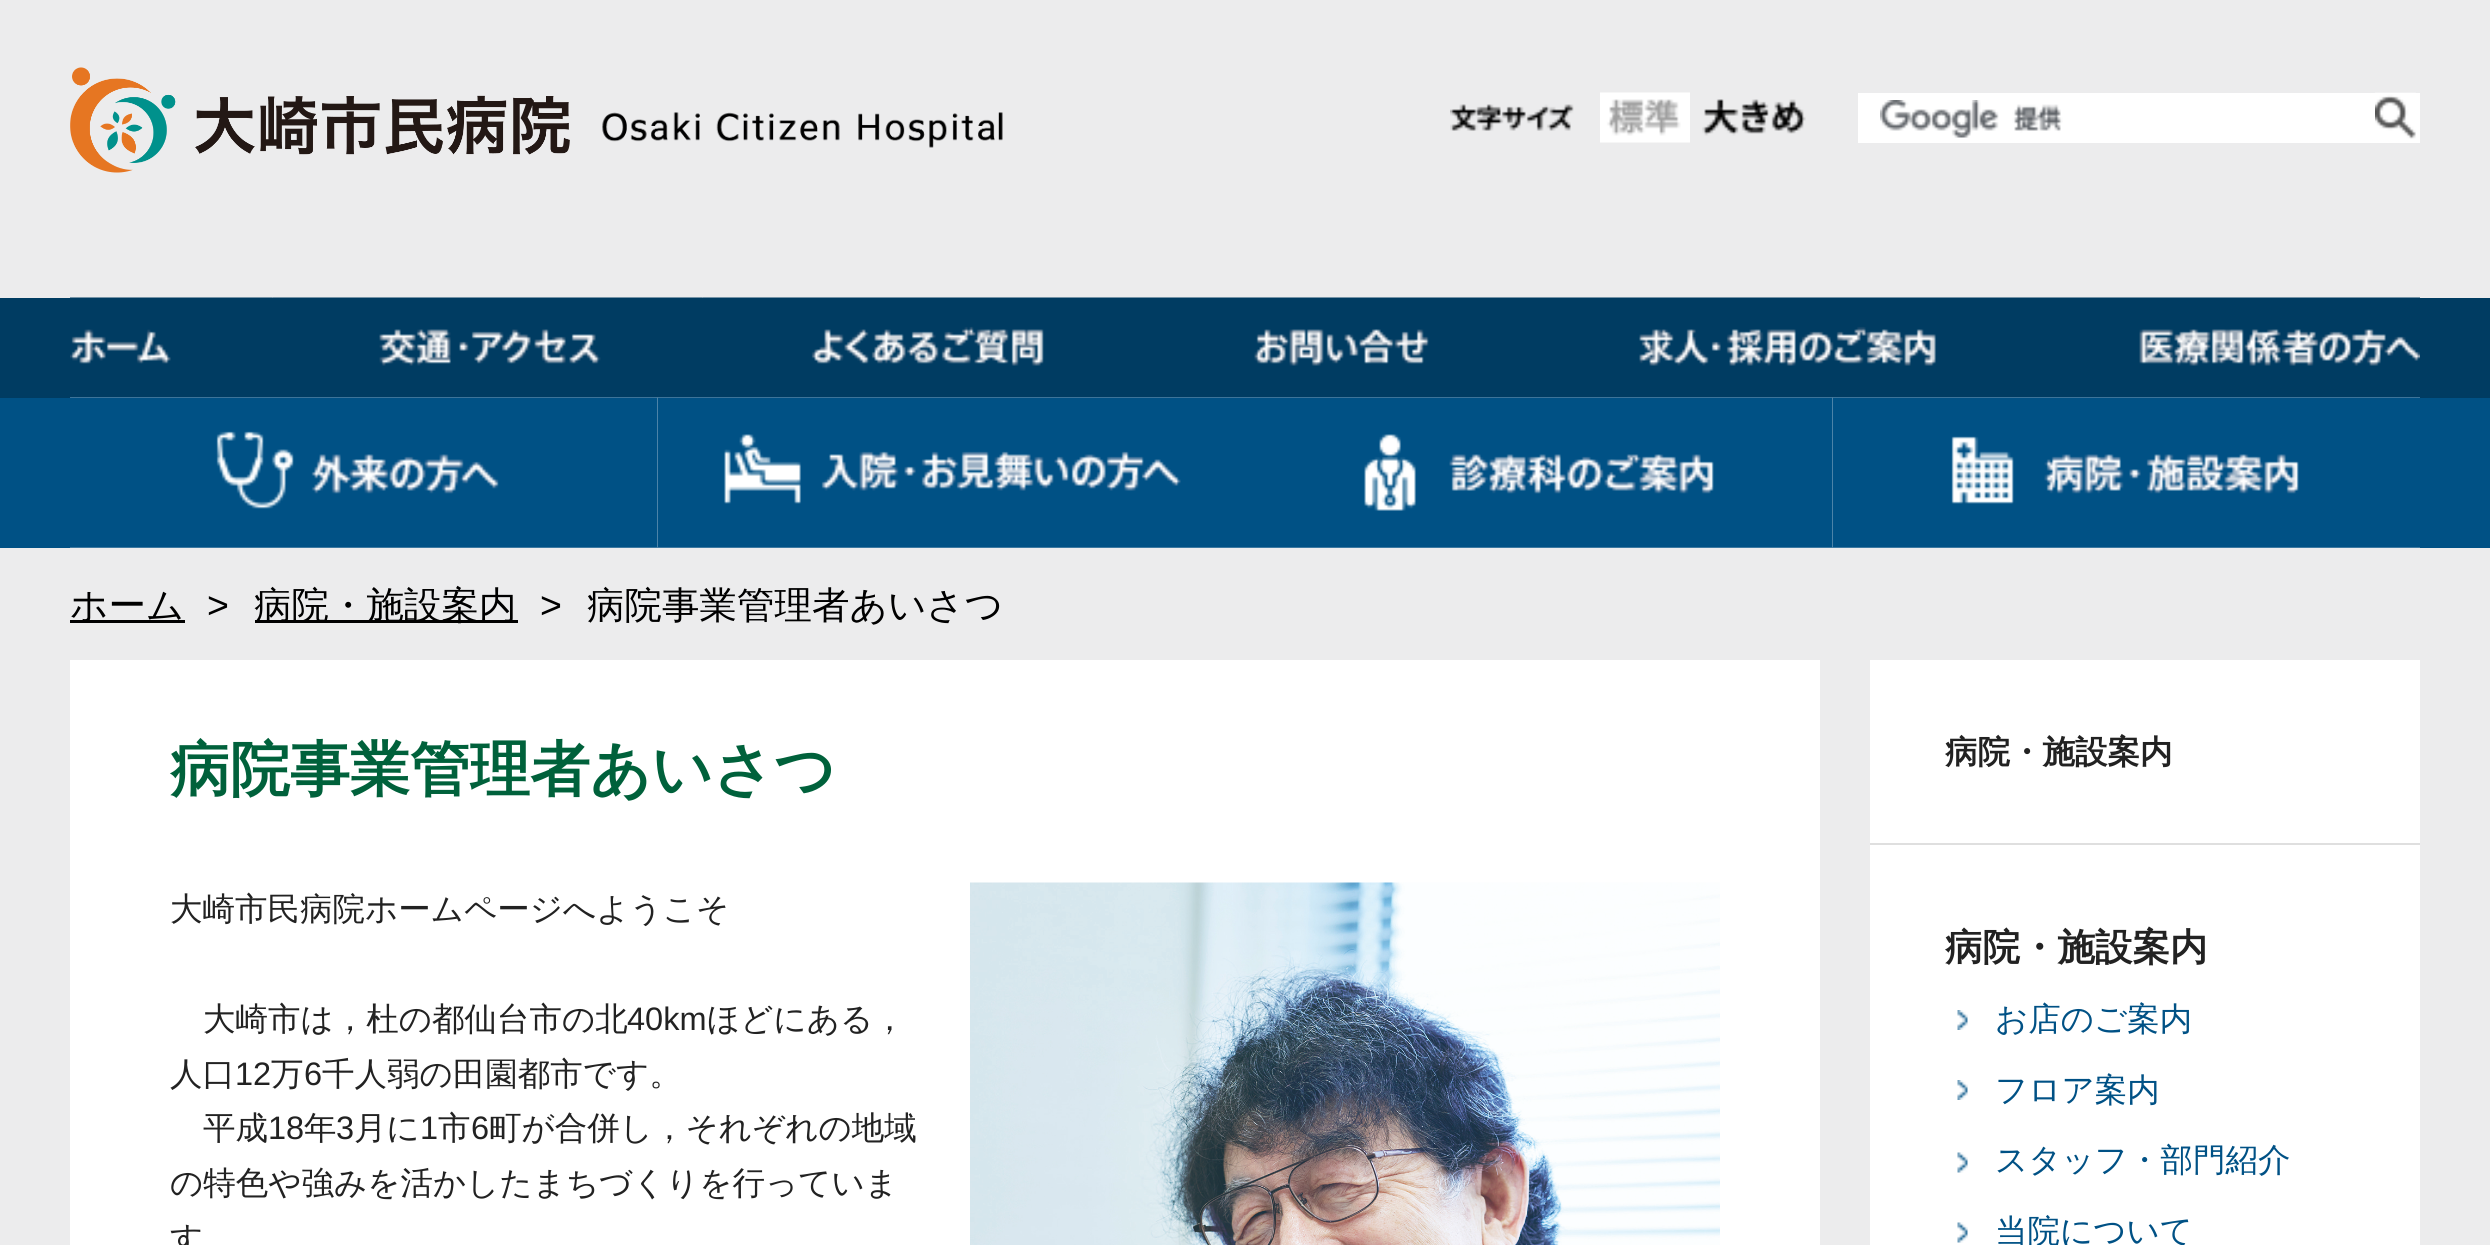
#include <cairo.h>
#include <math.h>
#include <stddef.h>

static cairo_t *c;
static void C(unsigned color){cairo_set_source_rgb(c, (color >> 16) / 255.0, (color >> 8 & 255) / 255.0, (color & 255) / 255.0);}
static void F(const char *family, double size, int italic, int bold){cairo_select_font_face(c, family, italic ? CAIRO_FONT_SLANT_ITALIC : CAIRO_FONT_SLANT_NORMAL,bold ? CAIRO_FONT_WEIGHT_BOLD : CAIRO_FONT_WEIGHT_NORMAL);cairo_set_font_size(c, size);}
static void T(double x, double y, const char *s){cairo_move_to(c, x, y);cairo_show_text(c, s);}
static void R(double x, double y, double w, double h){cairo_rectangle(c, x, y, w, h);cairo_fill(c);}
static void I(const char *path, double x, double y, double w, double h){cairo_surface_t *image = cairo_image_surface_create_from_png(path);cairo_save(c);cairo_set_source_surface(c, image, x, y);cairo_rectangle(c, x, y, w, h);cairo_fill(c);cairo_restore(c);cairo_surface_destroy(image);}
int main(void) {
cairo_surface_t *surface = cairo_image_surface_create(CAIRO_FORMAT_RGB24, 2490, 1245);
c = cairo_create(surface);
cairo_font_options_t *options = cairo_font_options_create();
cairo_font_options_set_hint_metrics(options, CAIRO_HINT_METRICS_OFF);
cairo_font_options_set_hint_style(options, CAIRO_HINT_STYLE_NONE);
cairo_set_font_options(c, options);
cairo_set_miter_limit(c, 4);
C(0xececed);
cairo_paint(c);
I("1.png",70,67,500,106);
I("2.png",602,112,401,36);
I("3.png",1450,104,124,27);
I("4.png",1600,92,90,51);
I("5.png",1702,99,104,37);
C(0xffffff);
R(1858,93,562,50);
I("6.png",1880,100,183,38);
I("7.png",2375,92,41,47);
C(0x003c62);
R(0,298,2490,100);
I("8.png",70,297,203,67);
I("9.png",272,297,431,69);
I("10.png",702,297,443,69);
I("11.png",1145,297,385,69);
I("12.png",1530,297,505,69);
I("13.png",2035,297,385,69);
C(0x005185);
R(0,398,2490,150);
I("14.png",70,397,588,151);
I("15.png",70,397,588,151);
I("16.png",657,397,588,151);
I("17.png",657,397,588,151);
I("18.png",1245,397,588,151);
I("19.png",1245,397,588,151);
I("20.png",1832,397,588,151);
I("21.png",1832,397,588,151);
C(0x000000);
R(70,620,115,3);
F("WenQuanYi Zen Hei Medium",37.5,0,0);
T(70,618,"ホーム");
F("Liberation Sans",37.5,0,0);
T(207,618,">");
R(255,620,263,3);
F("WenQuanYi Zen Hei Medium",37.5,0,0);
T(254,618,"病院・施設案内");
F("Liberation Sans",37.5,0,0);
T(540,618,">");
F("WenQuanYi Zen Hei Medium",37.5,0,0);
T(587,618,"病院事業管理者あいさつ");
C(0xffffff);
R(70,660,1750,585);
F("WenQuanYi Zen Hei",60,0,1);
C(0x00613b);
T(170,790,"病院事業管理者あいさつ");
F("WenQuanYi Zen Hei Medium",32.5,0,0);
C(0x222222);
T(170,920,"大崎市民病院ホームページへようこそ");
I("22.png",970,882,750,363);
T(203,1030,"大崎市は，杜の都仙台市の北");
F("Liberation Sans",32.5,0,0);
T(627,1030,"40km");
F("WenQuanYi Zen Hei Medium",32.5,0,0);
T(707,1030,"ほどにある，");
T(170,1085,"人口");
F("Liberation Sans",32.5,0,0);
T(235,1085,"12");
F("WenQuanYi Zen Hei Medium",32.5,0,0);
T(271,1085,"万");
F("Liberation Sans",32.5,0,0);
T(304,1085,"6");
F("WenQuanYi Zen Hei Medium",32.5,0,0);
T(322,1085,"千人弱の田園都市です。");
T(203,1139,"平成");
F("Liberation Sans",32.5,0,0);
T(268,1139,"18");
F("WenQuanYi Zen Hei Medium",32.5,0,0);
T(304,1139,"年");
F("Liberation Sans",32.5,0,0);
T(336,1139,"3");
F("WenQuanYi Zen Hei Medium",32.5,0,0);
T(354,1139,"月に");
F("Liberation Sans",32.5,0,0);
T(420,1139,"1");
F("WenQuanYi Zen Hei Medium",32.5,0,0);
T(438,1139,"市");
F("Liberation Sans",32.5,0,0);
T(471,1139,"6");
F("WenQuanYi Zen Hei Medium",32.5,0,0);
T(489,1139,"町が合併し，それぞれの地域");
T(170,1194,"の特色や強みを活かしたまちづくりを行っていま");
T(170,1249,"す");
C(0xffffff);
R(1870,660,550,183);
C(0xdfdfdf);
R(1870,843,550,2);
F("WenQuanYi Zen Hei",32.5,0,1);
C(0x222222);
T(1945,763,"病院・施設案内");
C(0xffffff);
R(1870,845,550,400);
F("WenQuanYi Zen Hei",37.5,0,1);
C(0x222222);
T(1945,960,"病院・施設案内");
I("23.png",1957,1010,11,20);
F("WenQuanYi Zen Hei Medium",32.5,0,0);
C(0x005185);
T(1995,1030,"お店のご案内");
I("23.png",1957,1080,11,20);
T(1995,1101,"フロア案内");
I("24.png",1957,1152,11,21);
T(1995,1171,"スタッフ・部門紹介");
I("24.png",1957,1222,11,21);
T(1995,1242,"当院について");
cairo_surface_write_to_png(surface, "o.png");
cairo_font_options_destroy(options);
cairo_destroy(c);
cairo_surface_destroy(surface);
return 0;
}
